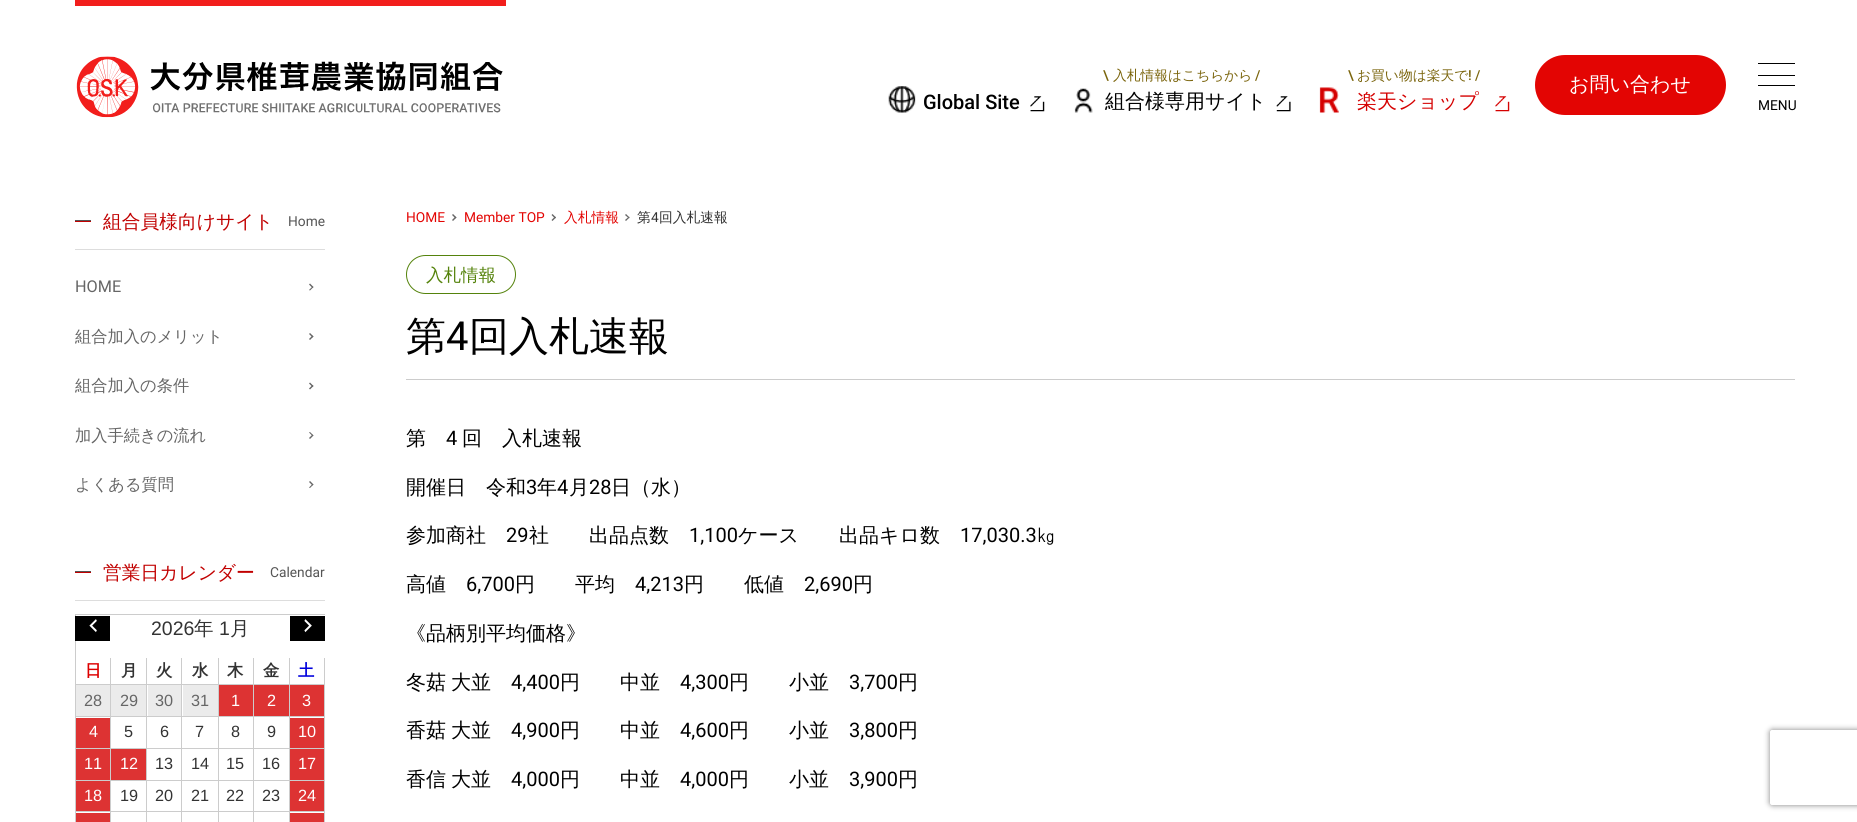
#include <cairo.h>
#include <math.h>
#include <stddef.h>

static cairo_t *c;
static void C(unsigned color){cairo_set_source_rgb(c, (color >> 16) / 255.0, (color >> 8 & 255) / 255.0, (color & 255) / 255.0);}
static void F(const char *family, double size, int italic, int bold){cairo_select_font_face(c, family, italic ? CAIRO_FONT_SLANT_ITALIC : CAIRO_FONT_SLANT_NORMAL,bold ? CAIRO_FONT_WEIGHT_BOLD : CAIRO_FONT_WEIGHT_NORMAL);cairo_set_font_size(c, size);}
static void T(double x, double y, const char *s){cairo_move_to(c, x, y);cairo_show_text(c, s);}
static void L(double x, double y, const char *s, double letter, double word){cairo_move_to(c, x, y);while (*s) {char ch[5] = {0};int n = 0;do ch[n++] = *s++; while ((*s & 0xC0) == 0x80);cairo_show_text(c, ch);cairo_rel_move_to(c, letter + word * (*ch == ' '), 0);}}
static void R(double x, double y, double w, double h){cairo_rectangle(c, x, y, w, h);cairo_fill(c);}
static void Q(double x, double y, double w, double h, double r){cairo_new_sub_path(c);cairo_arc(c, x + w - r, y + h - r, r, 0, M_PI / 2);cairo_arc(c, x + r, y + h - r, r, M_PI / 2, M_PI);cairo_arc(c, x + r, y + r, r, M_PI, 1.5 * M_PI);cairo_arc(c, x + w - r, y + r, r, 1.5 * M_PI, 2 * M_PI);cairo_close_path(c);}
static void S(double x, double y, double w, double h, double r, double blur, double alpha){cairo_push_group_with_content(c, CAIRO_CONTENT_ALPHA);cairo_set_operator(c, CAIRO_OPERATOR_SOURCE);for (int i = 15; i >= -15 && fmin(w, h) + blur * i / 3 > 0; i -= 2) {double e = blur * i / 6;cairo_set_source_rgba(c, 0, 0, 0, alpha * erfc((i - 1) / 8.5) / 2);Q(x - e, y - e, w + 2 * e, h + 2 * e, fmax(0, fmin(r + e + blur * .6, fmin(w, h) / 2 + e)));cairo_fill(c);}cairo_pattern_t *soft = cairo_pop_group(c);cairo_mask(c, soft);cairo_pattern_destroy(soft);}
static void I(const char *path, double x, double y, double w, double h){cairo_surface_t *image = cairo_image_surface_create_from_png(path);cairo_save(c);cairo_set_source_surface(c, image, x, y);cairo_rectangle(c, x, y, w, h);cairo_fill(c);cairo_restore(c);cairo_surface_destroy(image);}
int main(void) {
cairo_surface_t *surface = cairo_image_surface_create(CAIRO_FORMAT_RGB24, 1857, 822);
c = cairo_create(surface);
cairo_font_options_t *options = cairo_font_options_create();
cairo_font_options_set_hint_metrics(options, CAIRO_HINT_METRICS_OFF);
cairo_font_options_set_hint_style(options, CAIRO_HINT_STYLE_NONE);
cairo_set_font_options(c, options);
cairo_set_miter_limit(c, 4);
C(0xffffff);
cairo_paint(c);
C(0xf21e1c);
R(75,0,431,6);
I("1.png",76,56,427,62);
F("Roboto Medium",13.75,0,0);
C(0x7b650d);
T(1103,80,"\\");
F("WenQuanYi Zen Hei Medium",13.75,0,0);
T(1113,80,"入札情報はこちらから");
F("Roboto Medium",13.75,0,0);
T(1255,80,"/");
I("2.png",1074,88,19,25);
F("WenQuanYi Zen Hei Medium",20,0,0);
C(0x000000);
T(1105,108,"組合様専用サイト");
I("3.png",1276,96,15,16);
F("Roboto Medium",13.75,0,0);
C(0x7b650d);
T(1348,80,"\\");
F("WenQuanYi Zen Hei Medium",13.75,0,0);
T(1357,80,"お買い物は楽天で");
F("Roboto Medium",13.75,0,0);
T(1468,80,"! /");
I("4.png",1319,87,20,26);
F("WenQuanYi Zen Hei Medium",20,0,0);
C(0xd50000);
T(1357,108,"楽天ショップ");
I("5.png",1495,96,15,16);
C(0xe30503);
Q(1535,55,191,60,30);
cairo_fill(c);
C(0xffffff);
T(1569,91,"お問い合わせ");
I("6.png",888,86,28,27);
F("Roboto Medium",20,0,0);
C(0x000000);
T(923,109,"Global Site");
I("7.png",1030,96,15,16);
R(1758,63,37,1);
R(1758,75,37,1);
R(1758,85,37,1);
F("Roboto",13.75,0,0);
T(1758,110,"MENU");
C(0xdddddd);
R(75,249,250,1);
C(0x555555);
R(75,220,16,1);
F("WenQuanYi Zen Hei Medium",18.75,0,0);
C(0xc10000);
T(103,228,"組合員様向けサイト");
F("Roboto",13.75,0,0);
C(0x555555);
T(288,226,"Home");
C(0xc10000);
R(75,221,16,1);
F("Roboto",16.25,0,0);
C(0x666666);
T(75,292,"HOME");
cairo_new_path(c);
cairo_move_to(c,310,283.5);
cairo_line_to(c,313.5,287);
cairo_line_to(c,312.5,288);
cairo_line_to(c,309,284.5);
cairo_close_path(c);
cairo_fill(c);
cairo_new_path(c);
cairo_move_to(c,312.5,286.5);
cairo_line_to(c,313.5,287);
cairo_line_to(c,310,290.5);
cairo_line_to(c,309,290);
cairo_close_path(c);
cairo_fill(c);
F("WenQuanYi Zen Hei Medium",16.25,0,0);
T(75,342,"組合加入のメリット");
cairo_new_path(c);
cairo_move_to(c,310,333);
cairo_line_to(c,313.5,336.5);
cairo_line_to(c,312.5,337.5);
cairo_line_to(c,309,334);
cairo_close_path(c);
cairo_fill(c);
cairo_new_path(c);
cairo_move_to(c,312.5,335.5);
cairo_line_to(c,313.5,336.5);
cairo_line_to(c,310,340);
cairo_line_to(c,309,339);
cairo_close_path(c);
cairo_fill(c);
T(75,391,"組合加入の条件");
cairo_new_path(c);
cairo_move_to(c,310,382.5);
cairo_line_to(c,313.5,386);
cairo_line_to(c,312.5,387);
cairo_line_to(c,309,383.5);
cairo_close_path(c);
cairo_fill(c);
cairo_new_path(c);
cairo_move_to(c,312.5,385);
cairo_line_to(c,313.5,386);
cairo_line_to(c,310,389.5);
cairo_line_to(c,309,388.5);
cairo_close_path(c);
cairo_fill(c);
T(75,441,"加入手続きの流れ");
cairo_new_path(c);
cairo_move_to(c,310,432);
cairo_line_to(c,313.5,435.5);
cairo_line_to(c,312.5,436);
cairo_line_to(c,309,432.5);
cairo_close_path(c);
cairo_fill(c);
cairo_new_path(c);
cairo_move_to(c,312.5,434.5);
cairo_line_to(c,313.5,435.5);
cairo_line_to(c,310,439);
cairo_line_to(c,309,438);
cairo_close_path(c);
cairo_fill(c);
T(75,490,"よくある質問");
cairo_new_path(c);
cairo_move_to(c,310,481);
cairo_line_to(c,313.5,484.5);
cairo_line_to(c,312.5,485.5);
cairo_line_to(c,309,482);
cairo_close_path(c);
cairo_fill(c);
cairo_new_path(c);
cairo_move_to(c,312.5,484);
cairo_line_to(c,313.5,484.5);
cairo_line_to(c,310,488);
cairo_line_to(c,309,487.5);
cairo_close_path(c);
cairo_fill(c);
C(0xdddddd);
R(75,600,250,1);
C(0x555555);
R(75,571,16,1);
F("WenQuanYi Zen Hei Medium",18.75,0,0);
C(0xc10000);
T(103,579,"営業日カレンダー");
F("Roboto",13.75,0,0);
C(0x555555);
T(270,577,"Calendar");
C(0xc10000);
R(75,572,16,1);
C(0xcccccc);
R(75,614,250,1);
R(75,614,1,208);
C(0x000000);
R(75,616,35,25);
I("8.png",89,619,8,14);
F("Liberation Sans",19.5,0,0);
C(0x333333);
T(151,635,"2026");
F("WenQuanYi Zen Hei Medium",19.5,0,0);
T(194,635,"年");
F("Liberation Sans",19.5,0,0);
T(219,635,"1");
F("WenQuanYi Zen Hei Medium",19.5,0,0);
T(230,635,"月");
C(0x000000);
R(290,616,35,25);
I("9.png",304,619,8,14);
C(0xcccccc);
R(110,658,1,26);
F("WenQuanYi Zen Hei",16.25,0,1);
C(0xdd0000);
T(85,676,"日");
C(0xcccccc);
R(146,658,1,26);
C(0x333333);
T(121,676,"月");
C(0xcccccc);
R(181,658,1,26);
C(0x333333);
T(156,676,"火");
C(0xcccccc);
R(218,658,1,26);
C(0x333333);
T(192,676,"水");
C(0xcccccc);
R(253,658,1,26);
C(0x333333);
T(227,676,"木");
C(0xcccccc);
R(289,658,1,26);
C(0x333333);
T(263,676,"金");
C(0xcccccc);
R(324,658,1,26);
C(0x0000dd);
T(298,676,"土");
C(0xcccccc);
R(76,684,249,1);
R(110,684,1,32);
C(0xebebeb);
R(76,685,34,31);
F("Liberation Sans",16.25,0,0);
C(0x666666);
T(84,706,"28");
C(0xcccccc);
R(146,684,1,32);
C(0xebebeb);
R(111,685,35,31);
C(0x666666);
T(120,706,"29");
C(0xcccccc);
R(181,684,1,32);
C(0xebebeb);
R(148,685,33,31);
C(0x666666);
T(155,706,"30");
C(0xcccccc);
R(218,684,1,32);
C(0xebebeb);
R(183,685,35,31);
C(0x666666);
T(191,706,"31");
C(0xcccccc);
R(253,684,1,32);
C(0xdd3333);
R(219,685,34,31);
C(0xffffff);
T(231,706,"1");
C(0xcccccc);
R(289,684,1,32);
C(0xdd3333);
R(254,685,35,31);
C(0xffffff);
T(267,706,"2");
C(0xcccccc);
R(324,684,1,32);
C(0xdd3333);
R(290,685,34,31);
C(0xffffff);
T(302,706,"3");
C(0xcccccc);
R(76,716,249,1);
R(110,716,1,32);
C(0xdd3333);
R(76,718,34,30);
C(0xffffff);
T(89,737,"4");
C(0xcccccc);
R(146,716,1,32);
C(0x333333);
T(124,737,"5");
C(0xcccccc);
R(181,716,1,32);
C(0x333333);
T(160,737,"6");
C(0xcccccc);
R(218,716,1,32);
C(0x333333);
T(195,737,"7");
C(0xcccccc);
R(253,716,1,32);
C(0x333333);
T(231,737,"8");
C(0xcccccc);
R(289,716,1,32);
C(0x333333);
T(267,737,"9");
C(0xcccccc);
R(324,716,1,32);
C(0xdd3333);
R(290,718,34,30);
C(0xffffff);
T(298,737,"10");
C(0xcccccc);
R(76,748,249,1);
R(110,748,1,32);
C(0xdd3333);
R(76,749,34,31);
C(0xffffff);
T(84,769,"11");
C(0xcccccc);
R(146,748,1,32);
C(0xdd3333);
R(111,749,35,31);
C(0xffffff);
T(120,769,"12");
C(0xcccccc);
R(181,748,1,32);
C(0x333333);
T(155,769,"13");
C(0xcccccc);
R(218,748,1,32);
C(0x333333);
T(191,769,"14");
C(0xcccccc);
R(253,748,1,32);
C(0x333333);
T(226,769,"15");
C(0xcccccc);
R(289,748,1,32);
C(0x333333);
T(262,769,"16");
C(0xcccccc);
R(324,748,1,32);
C(0xdd3333);
R(290,749,34,31);
C(0xffffff);
T(298,769,"17");
C(0xcccccc);
R(76,780,249,1);
R(110,780,1,31);
C(0xdd3333);
R(76,781,34,30);
C(0xffffff);
T(84,801,"18");
C(0xcccccc);
R(146,780,1,31);
C(0x333333);
T(120,801,"19");
C(0xcccccc);
R(181,780,1,31);
C(0x333333);
T(155,801,"20");
C(0xcccccc);
R(218,780,1,31);
C(0x333333);
T(191,801,"21");
C(0xcccccc);
R(253,780,1,31);
C(0x333333);
T(226,801,"22");
C(0xcccccc);
R(289,780,1,31);
C(0x333333);
T(262,801,"23");
C(0xcccccc);
R(324,780,1,31);
C(0xdd3333);
R(290,781,34,30);
C(0xffffff);
T(298,801,"24");
C(0xcccccc);
R(76,811,249,1);
R(110,811,1,11);
C(0xdd3333);
R(76,813,34,9);
C(0xcccccc);
R(146,811,1,11);
R(181,811,1,11);
R(218,811,1,11);
R(253,811,1,11);
R(289,811,1,11);
R(324,811,1,11);
C(0xdd3333);
R(290,813,34,9);
F("Roboto",13.75,0,0);
C(0xe30503);
T(406,222,"HOME");
C(0x666666);
cairo_new_path(c);
cairo_move_to(c,453,214);
cairo_line_to(c,456.5,217.5);
cairo_line_to(c,455.5,218.5);
cairo_line_to(c,452,215);
cairo_close_path(c);
cairo_fill(c);
cairo_new_path(c);
cairo_move_to(c,455.5,216.5);
cairo_line_to(c,456.5,217.5);
cairo_line_to(c,453,221);
cairo_line_to(c,452,220);
cairo_close_path(c);
cairo_fill(c);
C(0xe30503);
T(464,222,"Member TOP");
C(0x666666);
cairo_new_path(c);
cairo_move_to(c,552.5,214);
cairo_line_to(c,556,217.5);
cairo_line_to(c,555,218.5);
cairo_line_to(c,551.5,215);
cairo_close_path(c);
cairo_fill(c);
cairo_new_path(c);
cairo_move_to(c,555,216.5);
cairo_line_to(c,556,217.5);
cairo_line_to(c,552.5,221);
cairo_line_to(c,551.5,220);
cairo_close_path(c);
cairo_fill(c);
F("WenQuanYi Zen Hei Medium",13.75,0,0);
C(0xe30503);
T(564,222,"入札情報");
C(0x666666);
cairo_new_path(c);
cairo_move_to(c,626,214);
cairo_line_to(c,629.5,217.5);
cairo_line_to(c,629,218.5);
cairo_line_to(c,625,215);
cairo_close_path(c);
cairo_fill(c);
cairo_new_path(c);
cairo_move_to(c,629,216.5);
cairo_line_to(c,629.5,217.5);
cairo_line_to(c,626,221);
cairo_line_to(c,625,220);
cairo_close_path(c);
cairo_fill(c);
C(0x333333);
T(637,222,"第");
F("Roboto",13.75,0,0);
T(651,222,"4");
F("WenQuanYi Zen Hei Medium",13.75,0,0);
T(659,222,"回入札速報");
C(0xcccccc);
R(406,379,1389,1);
Q(406.5,255.5,109,38,19);
C(0x55830c);
cairo_set_line_width(c,1);
cairo_stroke(c);
F("WenQuanYi Zen Hei Medium",17.5,0,0);
T(426,281,"入札情報");
F("WenQuanYi Zen Hei Medium",40,0,0);
C(0x000000);
T(406,350,"第");
F("Roboto",40,0,0);
T(446,350,"4");
F("WenQuanYi Zen Hei Medium",40,0,0);
T(469,350,"回入札速報");
F("WenQuanYi Zen Hei Medium",20,0,0);
T(406,445,"第");
F("Roboto",20,0,0);
T(446,445,"4");
F("WenQuanYi Zen Hei Medium",20,0,0);
T(462,445,"回　入札速報");
T(406,494,"開催日　令和");
F("Roboto",20,0,0);
T(526,494,"3");
F("WenQuanYi Zen Hei Medium",20,0,0);
T(537,494,"年");
F("Roboto",20,0,0);
T(557,494,"4");
F("WenQuanYi Zen Hei Medium",20,0,0);
T(569,494,"月");
F("Roboto",20,0,0);
T(589,494,"28");
F("WenQuanYi Zen Hei Medium",20,0,0);
T(611,494,"日（水）");
T(406,542,"参加商社");
F("Roboto",20,0,0);
T(506,542,"29");
F("WenQuanYi Zen Hei Medium",20,0,0);
T(529,542,"社　　出品点数");
F("Roboto",20,0,0);
T(689,542,"1,100");
F("WenQuanYi Zen Hei Medium",20,0,0);
T(738,542,"ケース　　出品キロ数");
F("Roboto",20,0,0);
T(960,542,"17,030.3");
F("WenQuanYi Zen Hei Medium",20,0,0);
T(1036,542,"㎏");
T(406,591,"高値");
F("Roboto",20,0,0);
T(466,591,"6,700");
F("WenQuanYi Zen Hei Medium",20,0,0);
T(515,591,"円　　平均");
F("Roboto",20,0,0);
T(635,591,"4,213");
F("WenQuanYi Zen Hei Medium",20,0,0);
T(684,591,"円　　低値");
F("Roboto",20,0,0);
T(804,591,"2,690");
F("WenQuanYi Zen Hei Medium",20,0,0);
T(853,591,"円");
T(406,640,"《品柄別平均価格》");
L(406,689,"冬菇 大並",0,-1);
F("Roboto",20,0,0);
T(511,689,"4,400");
F("WenQuanYi Zen Hei Medium",20,0,0);
T(560,689,"円　　中並");
F("Roboto",20,0,0);
T(680,689,"4,300");
F("WenQuanYi Zen Hei Medium",20,0,0);
T(729,689,"円　　小並");
F("Roboto",20,0,0);
T(849,689,"3,700");
F("WenQuanYi Zen Hei Medium",20,0,0);
T(898,689,"円");
L(406,737,"香菇 大並",0,-1);
F("Roboto",20,0,0);
T(511,737,"4,900");
F("WenQuanYi Zen Hei Medium",20,0,0);
T(560,737,"円　　中並");
F("Roboto",20,0,0);
T(680,737,"4,600");
F("WenQuanYi Zen Hei Medium",20,0,0);
T(729,737,"円　　小並");
F("Roboto",20,0,0);
T(849,737,"3,800");
F("WenQuanYi Zen Hei Medium",20,0,0);
T(898,737,"円");
L(406,786,"香信 大並",0,-1);
F("Roboto",20,0,0);
T(511,786,"4,000");
F("WenQuanYi Zen Hei Medium",20,0,0);
T(560,786,"円　　中並");
F("Roboto",20,0,0);
T(680,786,"4,000");
F("WenQuanYi Zen Hei Medium",20,0,0);
T(729,786,"円　　小並");
F("Roboto",20,0,0);
T(849,786,"3,900");
F("WenQuanYi Zen Hei Medium",20,0,0);
T(898,786,"円");
cairo_save(c);
cairo_set_fill_rule(c,CAIRO_FILL_RULE_EVEN_ODD);
cairo_new_path(c);
cairo_move_to(c,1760,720);
cairo_line_to(c,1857,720);
cairo_line_to(c,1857,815);
cairo_line_to(c,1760,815);
cairo_close_path(c);
cairo_move_to(c,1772.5,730);
cairo_line_to(c,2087.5,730);
cairo_curve_to(c,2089,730,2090,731,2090,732.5);
cairo_line_to(c,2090,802.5);
cairo_curve_to(c,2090,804,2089,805,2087.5,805);
cairo_line_to(c,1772.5,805);
cairo_curve_to(c,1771,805,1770,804,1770,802.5);
cairo_line_to(c,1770,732.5);
cairo_curve_to(c,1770,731,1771,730,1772.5,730);
cairo_close_path(c);
cairo_clip(c);
C(0x808080);
S(1770,730,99,75,2.5,3,1);
cairo_restore(c);
cairo_surface_write_to_png(surface, "o.png");
cairo_font_options_destroy(options);
cairo_destroy(c);
cairo_surface_destroy(surface);
return 0;
}
